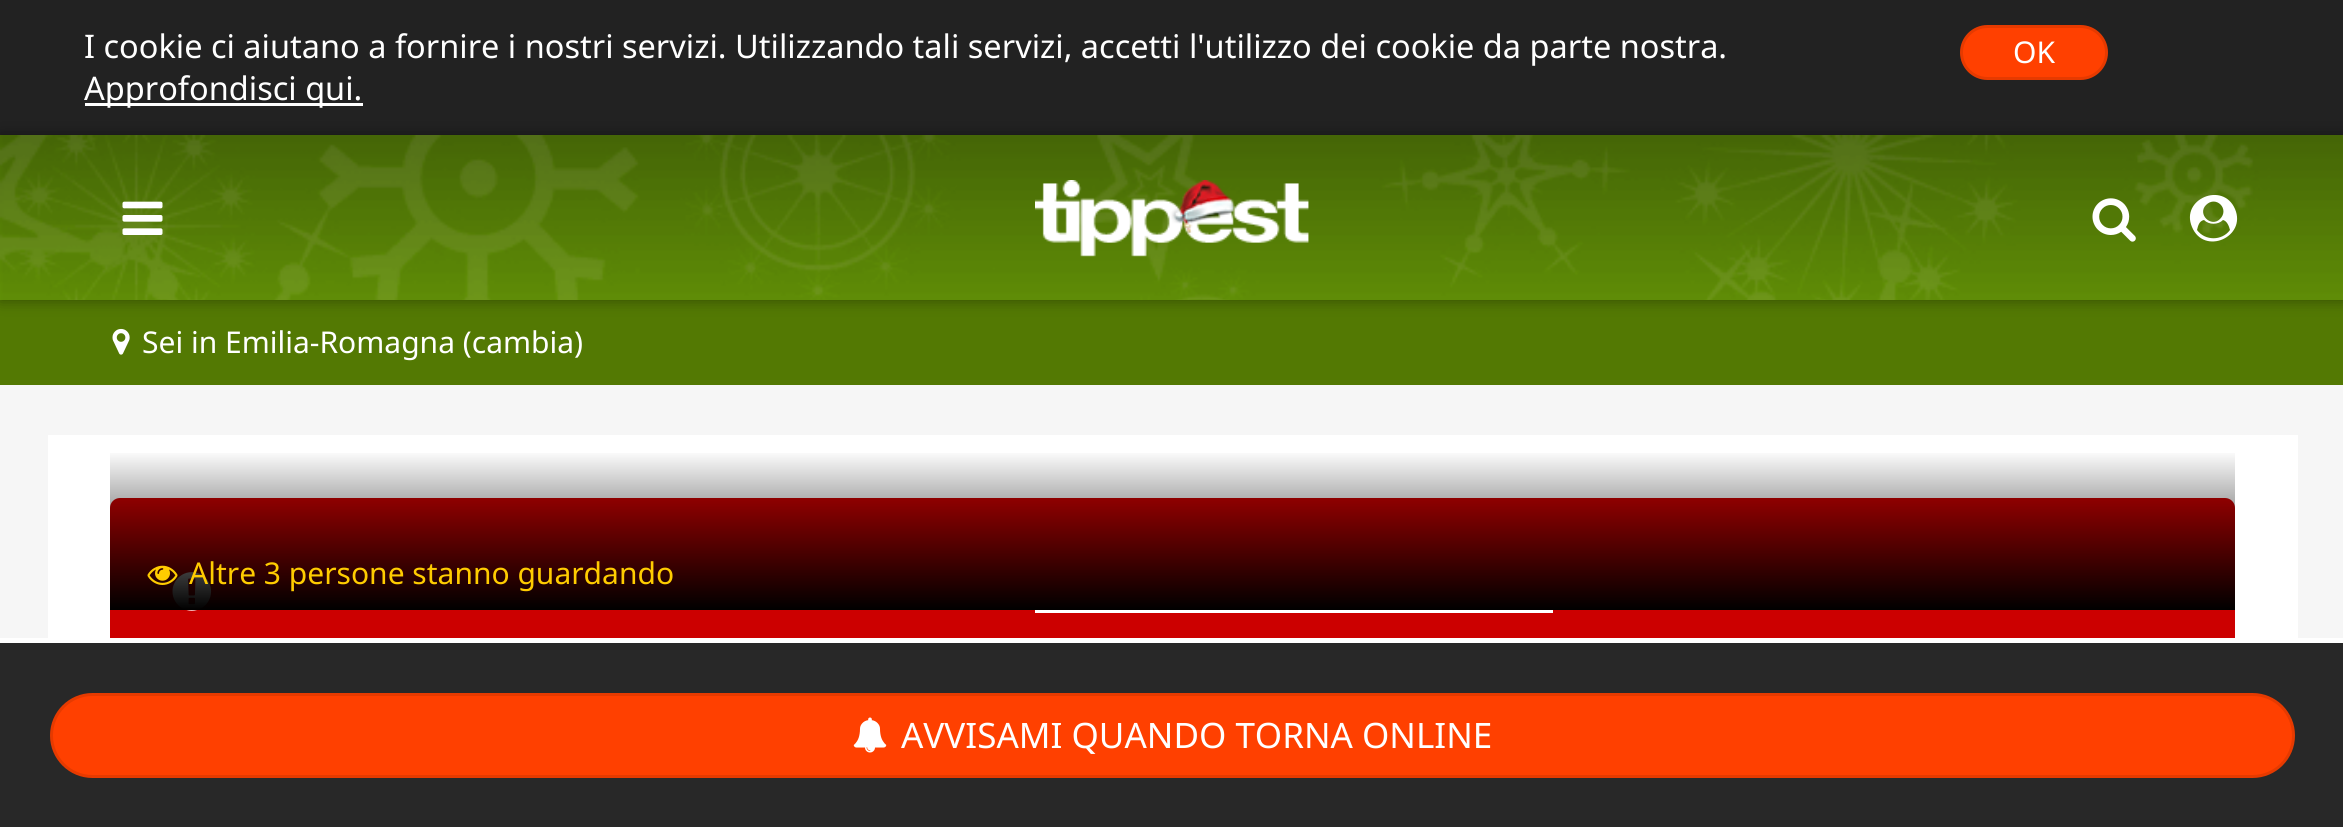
#include <cairo.h>
#include <math.h>
#include <stddef.h>

static cairo_t *c;
static void C(unsigned color){cairo_set_source_rgb(c, (color >> 16) / 255.0, (color >> 8 & 255) / 255.0, (color & 255) / 255.0);}
static void F(const char *family, double size, int italic, int bold){cairo_select_font_face(c, family, italic ? CAIRO_FONT_SLANT_ITALIC : CAIRO_FONT_SLANT_NORMAL,bold ? CAIRO_FONT_WEIGHT_BOLD : CAIRO_FONT_WEIGHT_NORMAL);cairo_set_font_size(c, size);}
static void T(double x, double y, const char *s){cairo_move_to(c, x, y);cairo_show_text(c, s);}
static void R(double x, double y, double w, double h){cairo_rectangle(c, x, y, w, h);cairo_fill(c);}
static void Q(double x, double y, double w, double h, double r){cairo_new_sub_path(c);cairo_arc(c, x + w - r, y + h - r, r, 0, M_PI / 2);cairo_arc(c, x + r, y + h - r, r, M_PI / 2, M_PI);cairo_arc(c, x + r, y + r, r, M_PI, 1.5 * M_PI);cairo_arc(c, x + w - r, y + r, r, 1.5 * M_PI, 2 * M_PI);cairo_close_path(c);}
static void S(double x, double y, double w, double h, double r, double blur, double alpha){cairo_push_group_with_content(c, CAIRO_CONTENT_ALPHA);cairo_set_operator(c, CAIRO_OPERATOR_SOURCE);for (int i = 15; i >= -15 && fmin(w, h) + blur * i / 3 > 0; i -= 2) {double e = blur * i / 6;cairo_set_source_rgba(c, 0, 0, 0, alpha * erfc((i - 1) / 8.5) / 2);Q(x - e, y - e, w + 2 * e, h + 2 * e, fmax(0, fmin(r + e + blur * .6, fmin(w, h) / 2 + e)));cairo_fill(c);}cairo_pattern_t *soft = cairo_pop_group(c);cairo_mask(c, soft);cairo_pattern_destroy(soft);}
static void I(const char *path, double x, double y, double w, double h){cairo_surface_t *image = cairo_image_surface_create_from_png(path);cairo_save(c);cairo_set_source_surface(c, image, x, y);cairo_rectangle(c, x, y, w, h);cairo_fill(c);cairo_restore(c);cairo_surface_destroy(image);}
int main(void) {
cairo_surface_t *surface = cairo_image_surface_create(CAIRO_FORMAT_RGB24, 2343, 827);
c = cairo_create(surface);
cairo_font_options_t *options = cairo_font_options_create();
cairo_font_options_set_hint_metrics(options, CAIRO_HINT_METRICS_OFF);
cairo_font_options_set_hint_style(options, CAIRO_HINT_STYLE_NONE);
cairo_set_font_options(c, options);
cairo_set_miter_limit(c, 4);
cairo_pattern_t *gradient;
C(0xf6f6f6);
cairo_paint(c);
C(0x222222);
R(0,0,2343,135);
F("Noto Sans",32.5,0,0);
C(0xffffff);
T(84,58,"I cookie ci aiutano a fornire i nostri servizi. Utilizzando tali servizi, accetti l'utilizzo dei cookie da parte nostra.");
R(85,103,278,3);
T(84,100,"Approfondisci qui.");
C(0xff4000);
Q(1961.5,26.5,145,52,26);
cairo_fill_preserve(c);
C(0xe63a00);
cairo_set_line_width(c,3);
cairo_stroke(c);
F("Noto Sans",30,0,0);
C(0xffffff);
T(2013,63,"OK");
C(0x537903);
R(0,300,2343,85);
C(0x000000);
S(0,135,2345,165,0,7.5,.4);
I("1.png",0,135,2343,165);
I("2.png",122,201,41,34);
I("3.png",1035,180,274,77);
I("4.png",2092,198,44,44);
C(0xffffff);
cairo_new_path(c);
cairo_move_to(c,2230,230);
cairo_curve_to(c,2229,226,2227,221,2223,220);
cairo_curve_to(c,2218,225,2209,225,2204,220);
cairo_curve_to(c,2199,221,2198,226,2197,230);
cairo_curve_to(c,2205,241,2222,241,2230,230);
cairo_close_path(c);
cairo_move_to(c,2220,219);
cairo_curve_to(c,2230,209,2216,195,2206,205);
cairo_curve_to(c,2197,214,2211,228,2220,219);
cairo_close_path(c);
cairo_move_to(c,2235,209);
cairo_curve_to(c,2247,237,2204,256,2192,227);
cairo_curve_to(c,2180,199,2223,181,2235,209);
cairo_close_path(c);
cairo_fill(c);
I("5.png",112,328,18,27);
T(142,353,"Sei in Emilia-Romagna (cambia)");
R(48,435,2250,203);
C(0xcc0000);
Q(110,498,2125,250,10);
cairo_fill(c);
I("6.png",172,572,40,39);
C(0xffffff);
R(1035,610,518,3);
gradient = cairo_pattern_create_linear(1173,610,1173,450);
cairo_pattern_add_color_stop_rgba(gradient,0,0,0,0,1);
cairo_pattern_add_color_stop_rgba(gradient,1,0,0,0,0);
cairo_set_source(c,gradient);
cairo_pattern_destroy(gradient);
R(110,453,2125,157);
I("7.png",147,565,31,20);
C(0xffcc00);
T(189,584,"Altre 3 persone stanno guardando");
C(0x282828);
R(0,643,2343,184);
C(0xffffff);
R(0,638,2343,5);
C(0xff4000);
Q(51.5,694.5,2242,82,41);
cairo_fill_preserve(c);
C(0xe63a00);
cairo_stroke(c);
I("8.png",853,717,34,36);
F("Noto Sans",35,0,0);
C(0xffffff);
T(901,748,"AVVISAMI QUANDO TORNA ONLINE");
cairo_surface_write_to_png(surface, "o.png");
cairo_font_options_destroy(options);
cairo_destroy(c);
cairo_surface_destroy(surface);
return 0;
}
